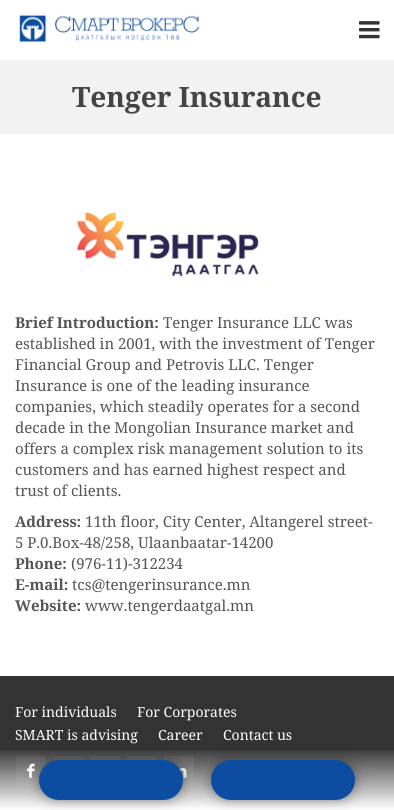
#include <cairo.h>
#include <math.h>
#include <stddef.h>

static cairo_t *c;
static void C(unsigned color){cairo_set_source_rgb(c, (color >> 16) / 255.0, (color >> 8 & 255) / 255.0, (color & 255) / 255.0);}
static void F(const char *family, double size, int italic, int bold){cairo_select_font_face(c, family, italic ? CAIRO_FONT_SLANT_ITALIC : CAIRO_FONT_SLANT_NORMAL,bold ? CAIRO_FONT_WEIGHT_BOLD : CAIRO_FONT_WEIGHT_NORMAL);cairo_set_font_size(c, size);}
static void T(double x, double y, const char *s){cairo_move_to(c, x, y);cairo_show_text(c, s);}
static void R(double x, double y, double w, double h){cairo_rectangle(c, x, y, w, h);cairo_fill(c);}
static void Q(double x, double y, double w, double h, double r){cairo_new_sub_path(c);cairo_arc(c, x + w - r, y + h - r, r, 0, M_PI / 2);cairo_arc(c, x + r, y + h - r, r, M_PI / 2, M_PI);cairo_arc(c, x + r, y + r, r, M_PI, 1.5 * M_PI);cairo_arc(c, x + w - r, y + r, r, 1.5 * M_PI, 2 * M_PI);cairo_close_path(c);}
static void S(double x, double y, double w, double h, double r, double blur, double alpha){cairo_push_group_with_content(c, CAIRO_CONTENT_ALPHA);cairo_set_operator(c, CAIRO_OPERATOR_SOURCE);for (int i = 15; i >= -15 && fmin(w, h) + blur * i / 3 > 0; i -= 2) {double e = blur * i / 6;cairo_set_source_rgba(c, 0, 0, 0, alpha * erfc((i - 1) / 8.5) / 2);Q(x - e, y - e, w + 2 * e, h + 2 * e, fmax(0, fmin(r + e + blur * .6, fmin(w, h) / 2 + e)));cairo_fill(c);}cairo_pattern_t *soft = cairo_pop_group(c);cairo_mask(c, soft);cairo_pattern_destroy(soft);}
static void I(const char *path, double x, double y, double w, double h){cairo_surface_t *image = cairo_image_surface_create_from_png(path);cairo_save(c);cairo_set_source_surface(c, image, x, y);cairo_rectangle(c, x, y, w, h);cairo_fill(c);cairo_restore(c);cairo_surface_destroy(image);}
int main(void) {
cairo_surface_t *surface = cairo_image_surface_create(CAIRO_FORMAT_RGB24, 394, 810);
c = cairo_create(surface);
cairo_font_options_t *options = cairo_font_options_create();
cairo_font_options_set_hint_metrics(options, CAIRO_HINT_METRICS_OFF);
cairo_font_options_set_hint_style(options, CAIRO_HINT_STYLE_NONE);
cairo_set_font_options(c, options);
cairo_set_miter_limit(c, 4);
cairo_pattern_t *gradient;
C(0xffffff);
cairo_paint(c);
I("1.png",19,14,181,29);
I("2.png",359,21,21,18);
C(0xf2f2f2);
R(0,60,394,74);
F("Noto Serif",28,0,1);
C(0x444444);
T(72,107,"Tenger Insurance");
I("3.png",76,212,183,65);
F("Noto Serif",15,0,1);
C(0x555555);
T(15,328,"Brief Introduction:");
F("Noto Serif",15,0,0);
T(163,328,"Tenger Insurance LLC was");
T(15,349,"established in 2001, with the investment of Tenger");
T(15,370,"Financial Group and Petrovis LLC. Tenger");
T(15,391,"Insurance is one of the leading insurance");
T(15,412,"companies, which steadily operates for a second");
T(15,433,"decade in the Mongolian Insurance market and");
T(15,454,"offers a complex risk management solution to its");
T(15,475,"customers and has earned highest respect and");
T(15,496,"trust of clients.");
F("Noto Serif",15,0,1);
T(15,527,"Address:");
F("Noto Serif",15,0,0);
T(85,527,"11th floor, City Center, Altangerel street-");
T(15,548,"5 P.0.Box-48/258, Ulaanbaatar-14200");
F("Noto Serif",15,0,1);
T(15,569,"Phone:");
F("Noto Serif",15,0,0);
T(71,569,"(976-11)-312234");
F("Noto Serif",15,0,1);
T(15,590,"E-mail:");
F("Noto Serif",15,0,0);
T(72,590,"tcs@tengerinsurance.mn");
F("Noto Serif",15,0,1);
T(15,611,"Website:");
F("Noto Serif",15,0,0);
T(85,611,"www.tengerdaatgal.mn");
C(0x333333);
R(0,676,394,134);
F("Noto Serif",14,0,0);
C(0xffffff);
T(15,717,"For individuals");
T(137,717,"For Corporates");
T(15,740,"SMART is advising");
T(158,740,"Career");
T(223,740,"Contact us");
C(0x3f3f3f);
Q(16,756,30,30,2);
cairo_fill(c);
I("4.png",27,763,8,15);
Q(53,756,30,30,2);
cairo_fill(c);
Q(90,756,30,30,2);
cairo_fill(c);
Q(127,756,30,30,2);
cairo_fill(c);
Q(164,756,30,30,2);
cairo_fill(c);
I("5.png",173,763,14,15);
gradient = cairo_pattern_create_linear(197,750,197,810);
cairo_pattern_add_color_stop_rgba(gradient,0,1,1,1,.05);
cairo_pattern_add_color_stop_rgba(gradient,1,1,1,1,1);
cairo_set_source(c,gradient);
cairo_pattern_destroy(gradient);
R(0,750,394,60);
C(0x333333);
S(211,760,144,40,20,6,.5);
C(0x0c4da1);
Q(211,760,144,40,20);
cairo_fill(c);
C(0x333333);
S(39,760,144,40,20,6,.5);
C(0x0c4da1);
Q(39,760,144,40,20);
cairo_fill(c);
cairo_surface_write_to_png(surface, "o.png");
cairo_font_options_destroy(options);
cairo_destroy(c);
cairo_surface_destroy(surface);
return 0;
}
